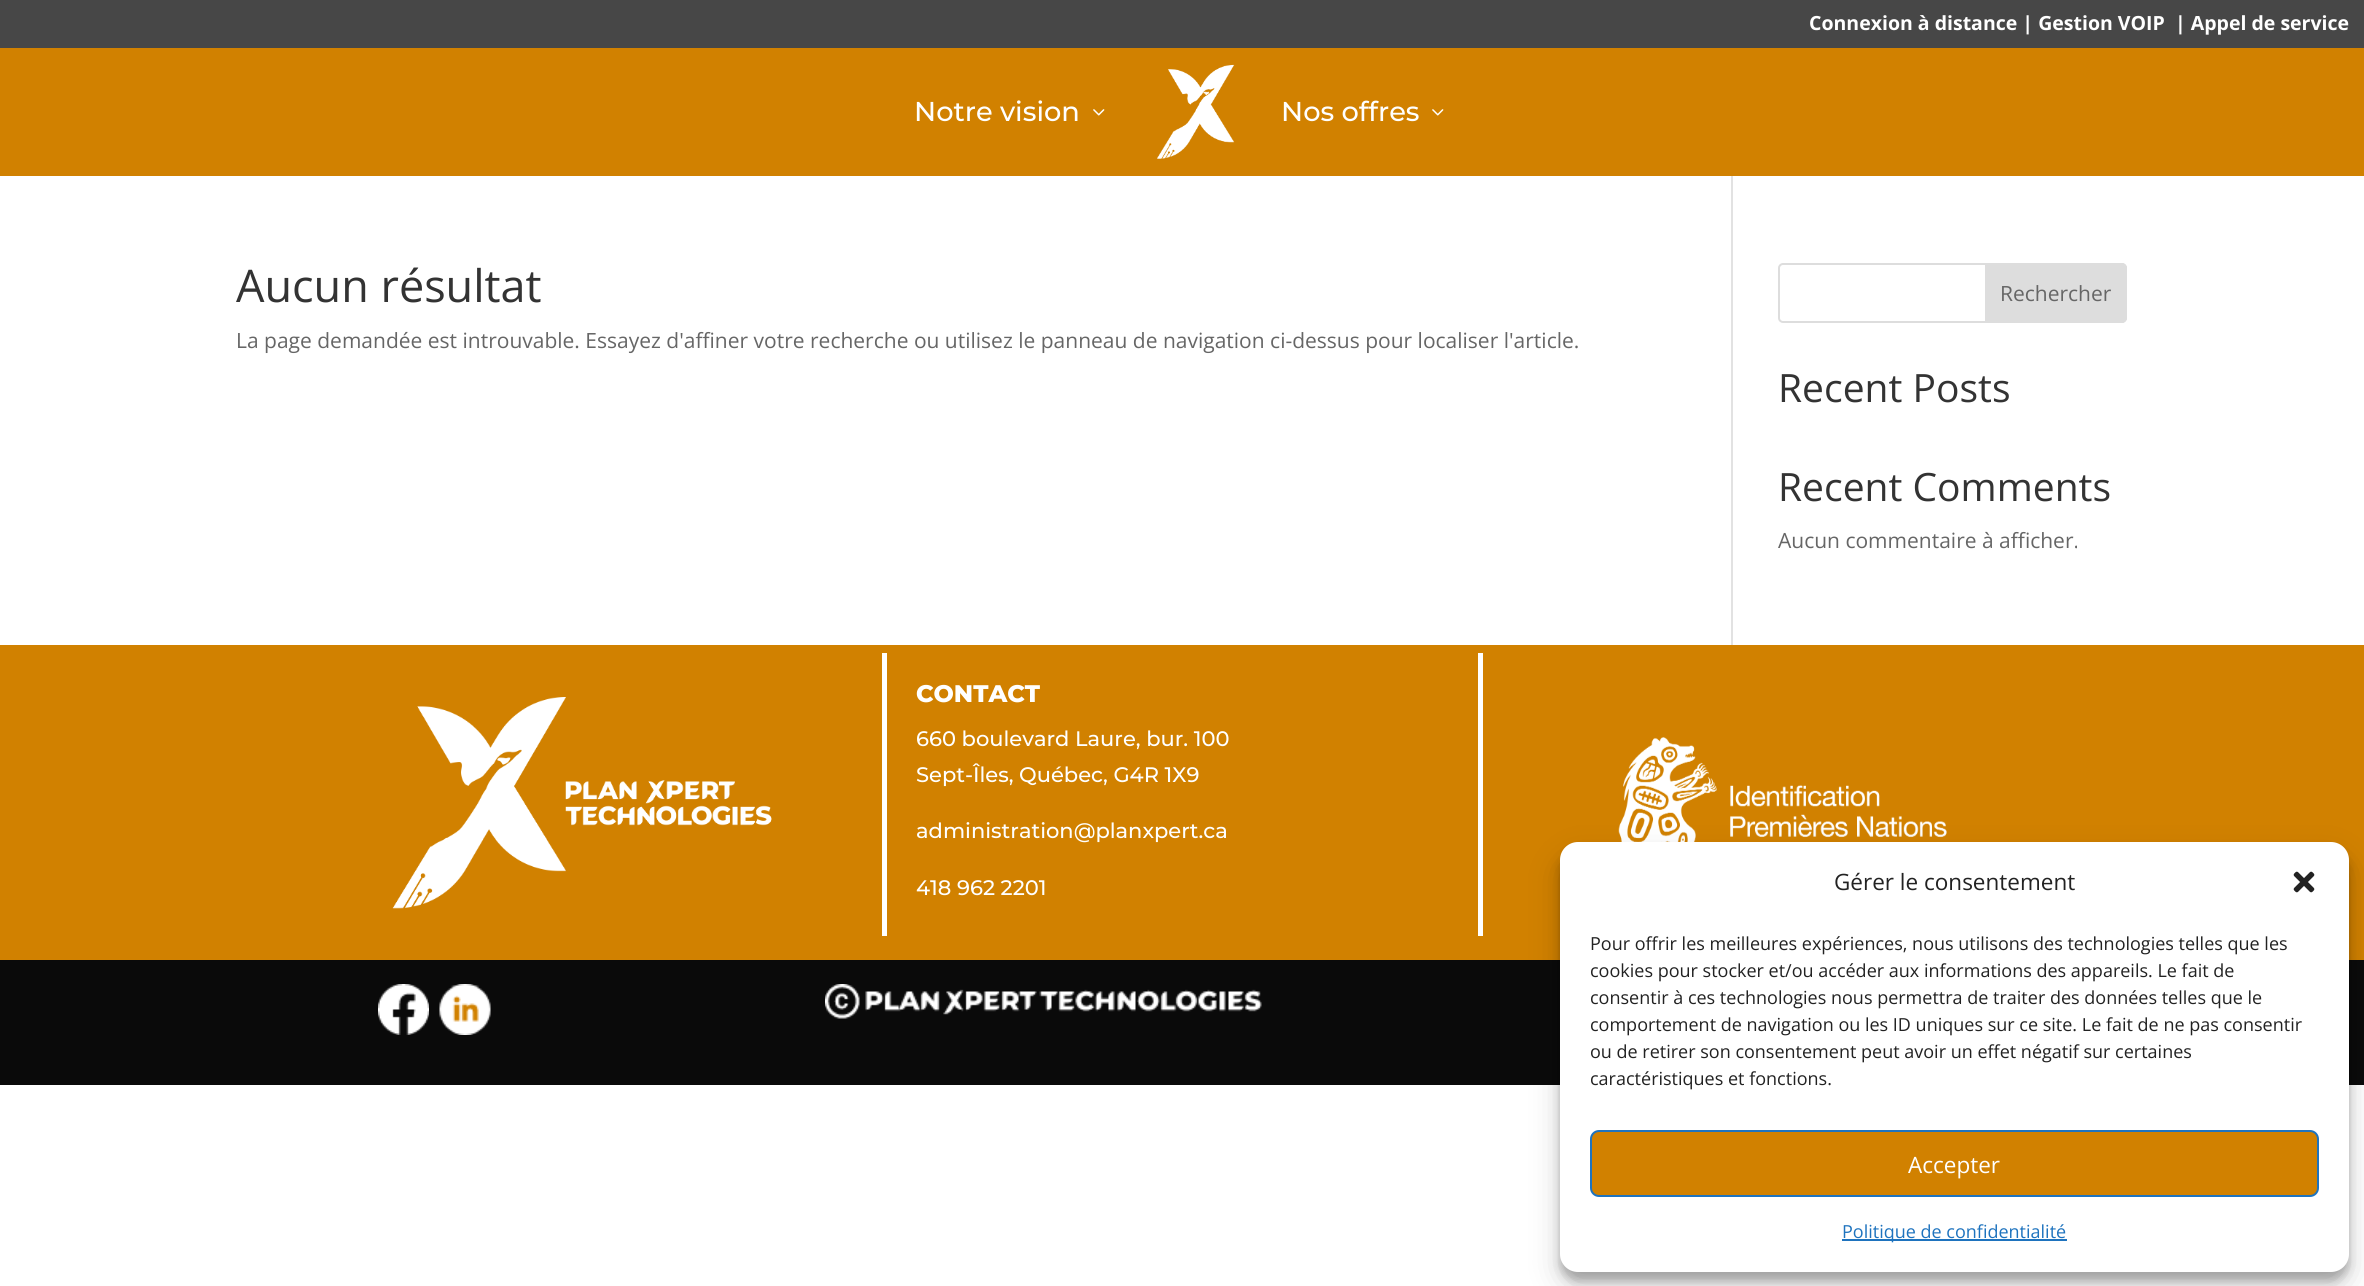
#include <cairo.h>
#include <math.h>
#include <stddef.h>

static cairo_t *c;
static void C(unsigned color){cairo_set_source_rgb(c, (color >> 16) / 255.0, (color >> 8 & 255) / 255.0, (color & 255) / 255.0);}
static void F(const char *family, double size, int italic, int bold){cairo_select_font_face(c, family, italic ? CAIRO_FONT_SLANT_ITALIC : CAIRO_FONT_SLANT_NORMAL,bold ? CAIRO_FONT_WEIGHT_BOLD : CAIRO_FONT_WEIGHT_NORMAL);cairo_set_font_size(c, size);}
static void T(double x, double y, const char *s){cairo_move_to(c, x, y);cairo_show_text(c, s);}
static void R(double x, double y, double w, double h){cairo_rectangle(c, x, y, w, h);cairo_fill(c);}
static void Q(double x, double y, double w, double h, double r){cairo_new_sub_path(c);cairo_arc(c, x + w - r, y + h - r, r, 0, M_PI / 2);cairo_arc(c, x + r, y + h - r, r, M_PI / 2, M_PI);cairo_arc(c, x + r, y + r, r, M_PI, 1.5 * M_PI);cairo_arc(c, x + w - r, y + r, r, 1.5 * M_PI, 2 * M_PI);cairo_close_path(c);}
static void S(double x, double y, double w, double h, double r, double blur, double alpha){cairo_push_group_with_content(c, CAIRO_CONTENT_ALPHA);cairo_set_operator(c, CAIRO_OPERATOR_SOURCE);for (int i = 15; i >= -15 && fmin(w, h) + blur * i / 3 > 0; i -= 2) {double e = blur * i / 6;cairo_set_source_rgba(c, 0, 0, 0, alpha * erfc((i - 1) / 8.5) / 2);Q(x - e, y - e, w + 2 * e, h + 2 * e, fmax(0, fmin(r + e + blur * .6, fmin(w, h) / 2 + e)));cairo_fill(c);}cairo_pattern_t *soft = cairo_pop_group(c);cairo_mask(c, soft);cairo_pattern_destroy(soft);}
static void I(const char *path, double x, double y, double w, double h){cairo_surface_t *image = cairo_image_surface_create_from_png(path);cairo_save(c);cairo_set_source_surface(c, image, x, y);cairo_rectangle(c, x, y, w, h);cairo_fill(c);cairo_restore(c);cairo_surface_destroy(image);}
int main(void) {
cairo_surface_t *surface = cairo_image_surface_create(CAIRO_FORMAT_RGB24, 2364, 1286);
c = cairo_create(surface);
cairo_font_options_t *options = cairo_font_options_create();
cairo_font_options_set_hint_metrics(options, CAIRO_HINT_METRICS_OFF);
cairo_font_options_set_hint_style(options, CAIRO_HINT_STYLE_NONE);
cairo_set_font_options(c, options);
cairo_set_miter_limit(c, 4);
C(0xffffff);
cairo_paint(c);
C(0x474747);
R(0,0,2364,48);
F("Open Sans",19.5,0,1);
C(0xffffff);
T(1809,30,"Connexion à distance | Gestion VOIP");
T(2175,30,"| Appel de service");
C(0xd18100);
R(0,48,2364,128);
F("Montserrat Medium",27.25,0,0);
C(0xffffff);
T(914,121,"Notre vision");
I("1.png",1093,109,12,7);
I("2.png",1157,64,78,95);
T(1281,121,"Nos offres");
I("1.png",1432,109,12,7);
C(0xe2e2e2);
R(1731,176,2,469);
F("Open Sans",45,0,0);
C(0x333333);
T(236,302,"Aucun résultat");
F("Open Sans",21,0,0);
C(0x666666);
T(236,348,"La page demandée est introuvable. Essayez d'affiner votre recherche ou utilisez le panneau de navigation ci-dessus pour localiser l'article.");
Q(1779,264,347,58,4);
C(0xdddddd);
cairo_stroke(c);
cairo_new_path(c);
cairo_move_to(c,1986,264);
cairo_line_to(c,2122,264);
cairo_curve_to(c,2124,264,2126,266,2126,268);
cairo_line_to(c,2126,318);
cairo_curve_to(c,2126,320,2124,322,2122,322);
cairo_line_to(c,1986,322);
cairo_close_path(c);
cairo_fill_preserve(c);
cairo_stroke(c);
C(0x666666);
T(2000,301,"Rechercher");
F("Open Sans",39,0,0);
C(0x333333);
T(1778,402,"Recent Posts");
T(1778,501,"Recent Comments");
F("Open Sans",21,0,0);
C(0x666666);
T(1778,548,"Aucun commentaire à afficher.");
C(0xd18100);
R(0,645,2364,315);
I("3.png",392,697,380,212);
C(0xffffff);
R(1478,653,5,283);
R(882,653,5,283);
F("Montserrat ExtraBold",24,0,0);
T(916,702,"CONTACT");
F("Montserrat Medium",21,0,0);
T(916,746,"660 boulevard Laure, bur. 100");
T(916,782,"Sept-Îles, Québec, G4R 1X9");
T(916,838,"administration@planxpert.ca");
T(916,895,"418 962 2201");
I("4.png",1618,737,329,105);
C(0x0a0a0a);
R(0,960,2364,125);
I("5.png",378,984,51,51);
I("6.png",439,984,52,51);
I("7.png",825,984,437,35);
C(0x000000);
S(1560,851,789,430,18,4.5,.23);
S(1560,857,789,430,18,15,.19);
C(0xffffff);
Q(1560,842,789,430,18);
cairo_fill(c);
F("Open Sans",22.5,0,0);
C(0x222222);
T(1834,890,"Gérer le consentement");
I("8.png",2293,871,22,22);
F("Open Sans",18,0,0);
T(1590,950,"Pour offrir les meilleures expériences, nous utilisons des technologies telles que les");
T(1590,977,"cookies pour stocker et/ou accéder aux informations des appareils. Le fait de");
T(1590,1004,"consentir à ces technologies nous permettra de traiter des données telles que le");
T(1590,1031,"comportement de navigation ou les ID uniques sur ce site. Le fait de ne pas consentir");
T(1590,1058,"ou de retirer son consentement peut avoir un effet négatif sur certaines");
T(1590,1085,"caractéristiques et fonctions.");
C(0xd18100);
Q(1591,1131,727,65,8);
cairo_fill_preserve(c);
C(0x1e73be);
cairo_stroke(c);
F("Open Sans",22.5,0,0);
C(0xffffff);
T(1908,1173,"Accepter");
C(0x1e73be);
R(1842,1239,225,2);
F("Open Sans",18,0,0);
T(1842,1238,"Politique de confidentialité");
cairo_surface_write_to_png(surface, "o.png");
cairo_font_options_destroy(options);
cairo_destroy(c);
cairo_surface_destroy(surface);
return 0;
}
